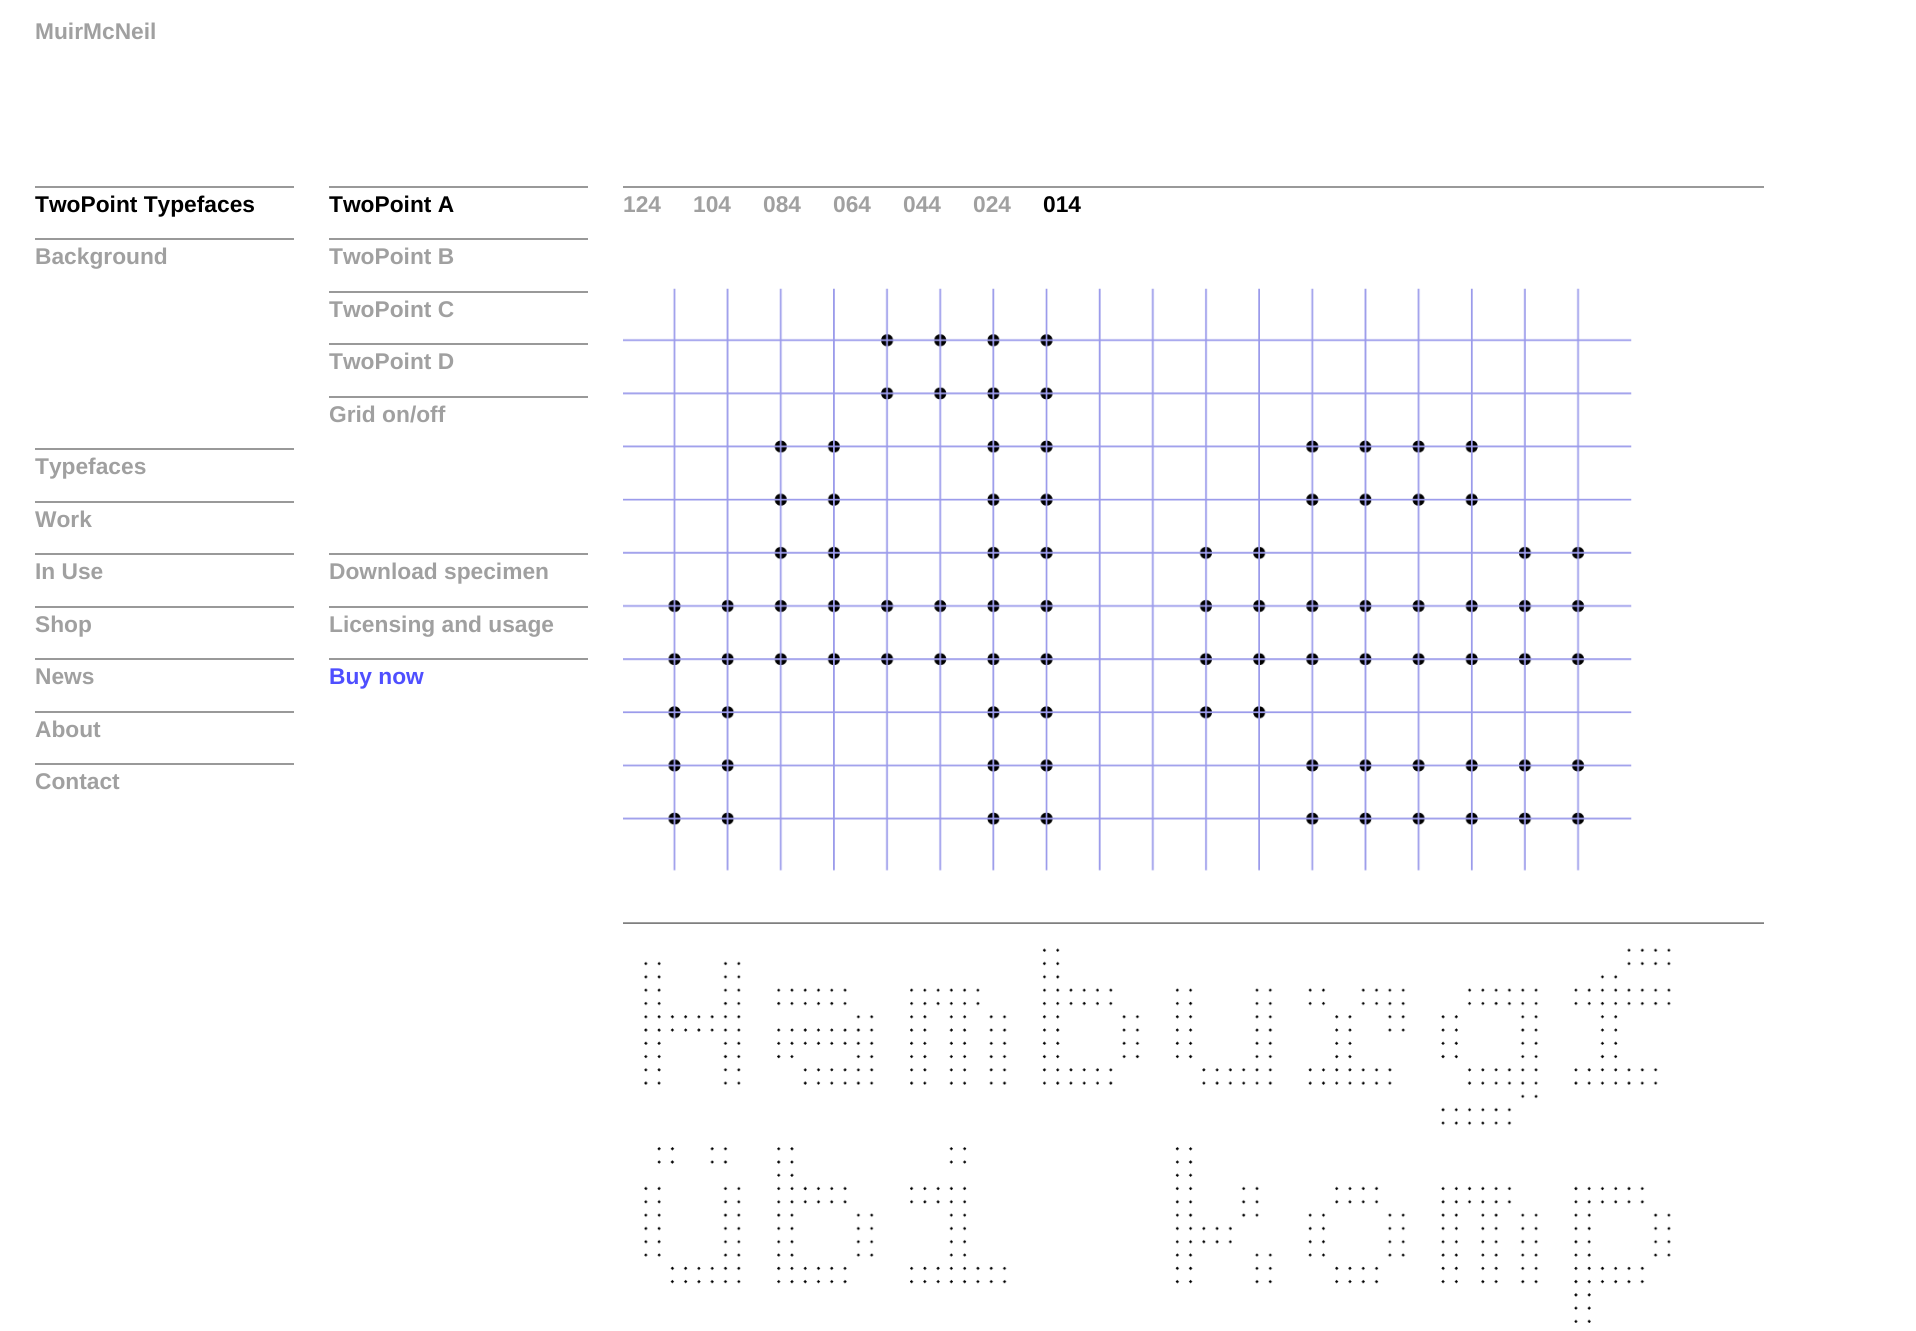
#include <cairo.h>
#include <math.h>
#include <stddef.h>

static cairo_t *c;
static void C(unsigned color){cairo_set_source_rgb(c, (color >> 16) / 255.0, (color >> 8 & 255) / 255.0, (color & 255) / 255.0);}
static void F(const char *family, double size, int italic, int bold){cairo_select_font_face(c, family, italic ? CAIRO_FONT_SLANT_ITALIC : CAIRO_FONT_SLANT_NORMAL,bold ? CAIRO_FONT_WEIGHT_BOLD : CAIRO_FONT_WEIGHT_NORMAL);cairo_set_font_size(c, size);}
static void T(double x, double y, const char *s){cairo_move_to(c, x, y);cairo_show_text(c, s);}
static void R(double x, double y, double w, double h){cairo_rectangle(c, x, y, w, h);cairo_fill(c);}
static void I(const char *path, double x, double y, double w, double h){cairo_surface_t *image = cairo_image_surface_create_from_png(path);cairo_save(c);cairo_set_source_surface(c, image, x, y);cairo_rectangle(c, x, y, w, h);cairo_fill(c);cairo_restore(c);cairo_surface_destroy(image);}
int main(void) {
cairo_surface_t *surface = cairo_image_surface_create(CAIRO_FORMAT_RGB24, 1916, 1331);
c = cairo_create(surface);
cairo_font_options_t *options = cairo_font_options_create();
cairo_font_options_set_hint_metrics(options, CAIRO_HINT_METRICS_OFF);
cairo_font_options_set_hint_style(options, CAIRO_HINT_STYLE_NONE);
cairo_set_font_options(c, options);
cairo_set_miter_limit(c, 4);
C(0xffffff);
cairo_paint(c);
F("Liberation Sans",22.75,0,1);
C(0xa0a0a0);
T(35,39,"MuirMcNeil");
C(0x999999);
R(35,186,259,2);
C(0x000000);
T(35,212,"TwoPoint Typefaces");
C(0x999999);
R(35,238,259,2);
C(0xa0a0a0);
T(35,264,"Background");
C(0x999999);
R(35,448,259,2);
C(0xa0a0a0);
T(35,474,"Typefaces");
C(0x999999);
R(35,501,259,2);
C(0xa0a0a0);
T(35,527,"Work");
C(0x999999);
R(35,553,259,2);
C(0xa0a0a0);
T(35,579,"In Use");
C(0x999999);
R(35,606,259,2);
C(0xa0a0a0);
T(35,632,"Shop");
C(0x999999);
R(35,658,259,2);
C(0xa0a0a0);
T(35,684,"News");
C(0x999999);
R(35,711,259,2);
C(0xa0a0a0);
T(35,737,"About");
C(0x999999);
R(35,763,259,2);
C(0xa0a0a0);
T(35,789,"Contact");
C(0x999999);
R(329,186,259,2);
C(0x000000);
T(329,212,"TwoPoint A");
C(0x999999);
R(329,238,259,2);
C(0xa0a0a0);
T(329,264,"TwoPoint B");
C(0x999999);
R(329,291,259,2);
C(0xa0a0a0);
T(329,317,"TwoPoint C");
C(0x999999);
R(329,343,259,2);
C(0xa0a0a0);
T(329,369,"TwoPoint D");
C(0x999999);
R(329,396,259,2);
C(0xa0a0a0);
T(329,422,"Grid on/off");
C(0x999999);
R(329,553,259,2);
C(0xa0a0a0);
T(329,579,"Download specimen");
C(0x999999);
R(329,606,259,2);
C(0xa0a0a0);
T(329,632,"Licensing and usage");
C(0x999999);
R(329,658,259,2);
C(0x4f4fff);
T(329,684,"Buy now");
C(0x999999);
R(623,186,1141,2);
C(0xa0a0a0);
T(623,212,"124");
T(693,212,"104");
T(763,212,"084");
T(833,212,"064");
T(903,212,"044");
T(973,212,"024");
C(0x000000);
T(1043,212,"014");
I("1.png",623,288,1141,1035);
cairo_surface_write_to_png(surface, "o.png");
cairo_font_options_destroy(options);
cairo_destroy(c);
cairo_surface_destroy(surface);
return 0;
}
